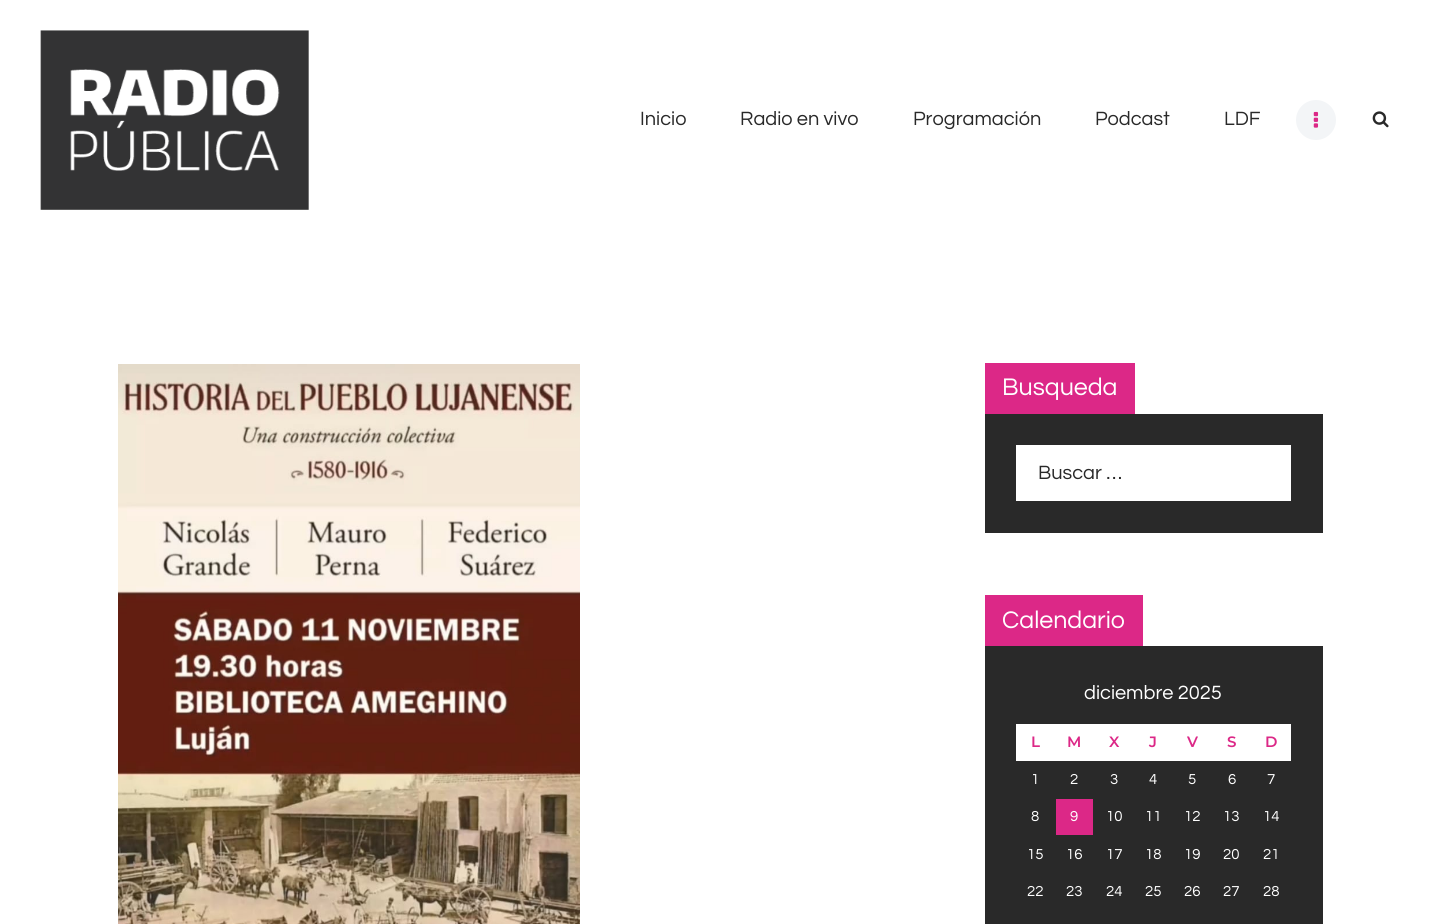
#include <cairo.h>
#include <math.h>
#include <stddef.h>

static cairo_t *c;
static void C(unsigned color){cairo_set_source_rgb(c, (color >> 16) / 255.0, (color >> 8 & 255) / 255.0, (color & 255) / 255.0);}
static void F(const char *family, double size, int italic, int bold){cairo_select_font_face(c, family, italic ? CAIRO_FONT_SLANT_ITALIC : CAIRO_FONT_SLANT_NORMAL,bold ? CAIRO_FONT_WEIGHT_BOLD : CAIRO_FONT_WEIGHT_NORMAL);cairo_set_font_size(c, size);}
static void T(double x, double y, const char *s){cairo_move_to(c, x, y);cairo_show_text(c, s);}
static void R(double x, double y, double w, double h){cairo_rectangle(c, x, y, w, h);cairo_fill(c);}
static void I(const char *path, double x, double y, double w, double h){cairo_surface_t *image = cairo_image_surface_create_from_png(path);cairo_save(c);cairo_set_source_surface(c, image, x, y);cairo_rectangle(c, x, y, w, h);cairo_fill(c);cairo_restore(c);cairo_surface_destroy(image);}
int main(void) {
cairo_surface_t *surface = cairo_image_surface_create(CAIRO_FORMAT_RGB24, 1438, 924);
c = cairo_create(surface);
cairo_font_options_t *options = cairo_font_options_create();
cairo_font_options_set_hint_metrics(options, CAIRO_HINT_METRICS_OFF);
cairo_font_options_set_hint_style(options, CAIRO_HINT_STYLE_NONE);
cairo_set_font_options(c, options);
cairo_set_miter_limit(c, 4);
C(0xffffff);
cairo_paint(c);
I("1.png",40,30,269,180);
F("Questrial",20,0,0);
C(0x292929);
T(640,125,"Inicio");
T(740,125,"Radio en vivo");
T(913,125,"Programación");
T(1095,125,"Podcast");
T(1224,125,"LDF");
C(0xf3f5f7);
cairo_new_path(c);
cairo_arc(c,1316,120,20,0,2 * M_PI);
cairo_fill(c);
I("2.png",1313,111,6,17);
I("3.png",1372,111,17,17);
I("4.png",118,364,462,560);
C(0x292929);
R(985,414,338,119);
C(0xdc2887);
R(985,363,150,51);
F("Questrial",25,0,0);
C(0xffffff);
T(1002,395,"Busqueda");
R(1016,445,275,56);
F("Questrial",20,0,0);
C(0x292929);
T(1038,479,"Buscar …");
R(985,646,338,278);
C(0xdc2887);
R(985,595,158,51);
F("Questrial",25,0,0);
C(0xffffff);
T(1002,628,"Calendario");
F("Questrial",20,0,0);
T(1084,699,"diciembre 2025");
R(1016,724,275,37);
F("Montserrat SemiBold",15,0,0);
C(0xdc2887);
T(1031,747,"L");
T(1067,747,"M");
T(1109,747,"X");
T(1149,747,"J");
T(1187,747,"V");
T(1227,747,"S");
T(1265,747,"D");
F("Questrial",15,0,0);
C(0xffffff);
T(1031,784,"1");
T(1070,784,"2");
T(1110,784,"3");
T(1149,784,"4");
T(1188,784,"5");
T(1228,784,"6");
T(1267,784,"7");
T(1031,821,"8");
C(0xdc2887);
R(1056,799,37,36);
C(0xffffff);
T(1070,821,"9");
T(1106,821,"10");
T(1145,821,"11");
T(1184,821,"12");
T(1223,821,"13");
T(1263,821,"14");
T(1027,859,"15");
T(1066,859,"16");
T(1106,859,"17");
T(1145,859,"18");
T(1184,859,"19");
T(1223,859,"20");
T(1263,859,"21");
T(1027,896,"22");
T(1066,896,"23");
T(1106,896,"24");
T(1145,896,"25");
T(1184,896,"26");
T(1223,896,"27");
T(1263,896,"28");
cairo_surface_write_to_png(surface, "o.png");
cairo_font_options_destroy(options);
cairo_destroy(c);
cairo_surface_destroy(surface);
return 0;
}
